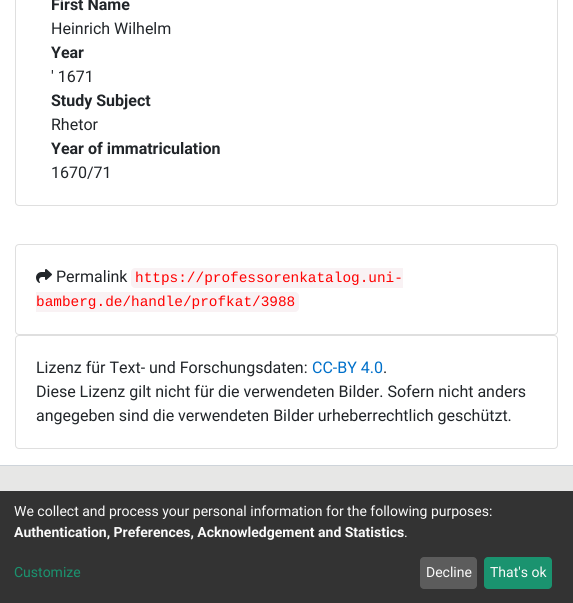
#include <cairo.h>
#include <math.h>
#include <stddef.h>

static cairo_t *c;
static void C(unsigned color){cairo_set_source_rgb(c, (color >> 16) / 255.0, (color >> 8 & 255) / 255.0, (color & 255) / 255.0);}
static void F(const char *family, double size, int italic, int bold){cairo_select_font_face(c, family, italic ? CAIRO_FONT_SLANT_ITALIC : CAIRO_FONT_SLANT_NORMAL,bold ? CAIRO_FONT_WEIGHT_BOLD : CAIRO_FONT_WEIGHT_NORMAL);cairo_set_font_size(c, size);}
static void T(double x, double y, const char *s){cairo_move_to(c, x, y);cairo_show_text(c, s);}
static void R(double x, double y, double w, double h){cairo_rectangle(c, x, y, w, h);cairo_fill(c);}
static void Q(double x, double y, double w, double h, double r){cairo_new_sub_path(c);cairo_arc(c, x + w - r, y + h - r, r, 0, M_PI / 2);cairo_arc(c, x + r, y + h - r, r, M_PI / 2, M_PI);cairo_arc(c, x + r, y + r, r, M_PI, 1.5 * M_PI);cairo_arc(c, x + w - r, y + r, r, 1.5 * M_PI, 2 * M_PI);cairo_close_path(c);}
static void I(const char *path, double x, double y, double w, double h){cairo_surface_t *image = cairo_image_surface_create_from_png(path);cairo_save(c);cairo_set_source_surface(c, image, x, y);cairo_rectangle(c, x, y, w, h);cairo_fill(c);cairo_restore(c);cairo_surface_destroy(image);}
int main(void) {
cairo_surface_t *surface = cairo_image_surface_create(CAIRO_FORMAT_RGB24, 573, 603);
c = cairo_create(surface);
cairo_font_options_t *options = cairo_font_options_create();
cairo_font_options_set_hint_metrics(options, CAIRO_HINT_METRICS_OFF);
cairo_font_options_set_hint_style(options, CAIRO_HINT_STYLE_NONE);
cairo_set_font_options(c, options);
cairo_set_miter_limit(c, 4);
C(0xffffff);
cairo_paint(c);
Q(15.5,-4.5,542,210,3.5);
C(0xdfdfdf);
cairo_set_line_width(c,1);
cairo_stroke(c);
F("Roboto",16,0,1);
C(0x212529);
T(51,10,"First Name");
F("Roboto",16,0,0);
T(51,34,"Heinrich Wilhelm");
F("Roboto",16,0,1);
T(51,58,"Year");
F("Roboto",16,0,0);
T(51,82,"' 1671");
F("Roboto",16,0,1);
T(51,106,"Study Subject");
F("Roboto",16,0,0);
T(51,130,"Rhetor");
F("Roboto",16,0,1);
T(51,154,"Year of immatriculation");
F("Roboto",16,0,0);
T(51,178,"1670/71");
Q(15.5,244.5,542,90,3.5);
C(0xdfdfdf);
cairo_stroke(c);
I("1.png",36,269,16,14);
C(0x212529);
T(56,282,"Permalink");
C(0xf9f2f4);
cairo_new_path(c);
cairo_move_to(c,135,268);
cairo_line_to(c,403,268);
cairo_line_to(c,403,288);
cairo_line_to(c,135,288);
cairo_curve_to(c,133,288,131,286,131,284);
cairo_line_to(c,131,272);
cairo_curve_to(c,131,270,133,268,135,268);
cairo_close_path(c);
cairo_fill(c);
F("Liberation Mono",14.4,0,0);
C(0xff0000);
T(135,282,"https://professorenkatalog.uni-");
C(0xf9f2f4);
cairo_new_path(c);
cairo_move_to(c,36,292);
cairo_line_to(c,295,292);
cairo_curve_to(c,297,292,299,294,299,296);
cairo_line_to(c,299,308);
cairo_curve_to(c,299,310,297,312,295,312);
cairo_line_to(c,36,312);
cairo_close_path(c);
cairo_fill(c);
C(0xff0000);
T(36,306,"bamberg.de/handle/profkat/3988");
Q(15.5,335.5,542,113,3.5);
C(0xdfdfdf);
cairo_stroke(c);
F("Roboto",16,0,0);
C(0x212529);
T(36,373,"Lizenz für Text- und Forschungsdaten:");
C(0x0070ca);
T(312,373,"CC-BY 4.0");
C(0x212529);
T(383,373,".");
T(36,397,"Diese Lizenz gilt nicht für die verwendeten Bilder. Sofern nicht anders");
T(36,421,"angegeben sind die verwendeten Bilder urheberrechtlich geschützt.");
C(0xe7e7e6);
R(0,466,573,25);
C(0xced4da);
R(0,465,573,1);
C(0x333333);
R(0,491,573,112);
F("Roboto",14,0,0);
C(0xfafafa);
T(14,516,"We collect and process your personal information for the following purposes:");
F("Roboto",14,0,1);
T(14,537,"Authentication, Preferences, Acknowledgement and Statistics");
F("Roboto",14,0,0);
T(404,537,".");
C(0x1a936f);
T(14,577,"Customize");
C(0x5c5c5c);
Q(420,557,57,32,4);
cairo_fill(c);
C(0xfafafa);
T(426,577,"Decline");
C(0x1a936f);
Q(484,557,68,32,4);
cairo_fill(c);
C(0xfafafa);
T(490,577,"That's ok");
cairo_surface_write_to_png(surface, "o.png");
cairo_font_options_destroy(options);
cairo_destroy(c);
cairo_surface_destroy(surface);
return 0;
}
